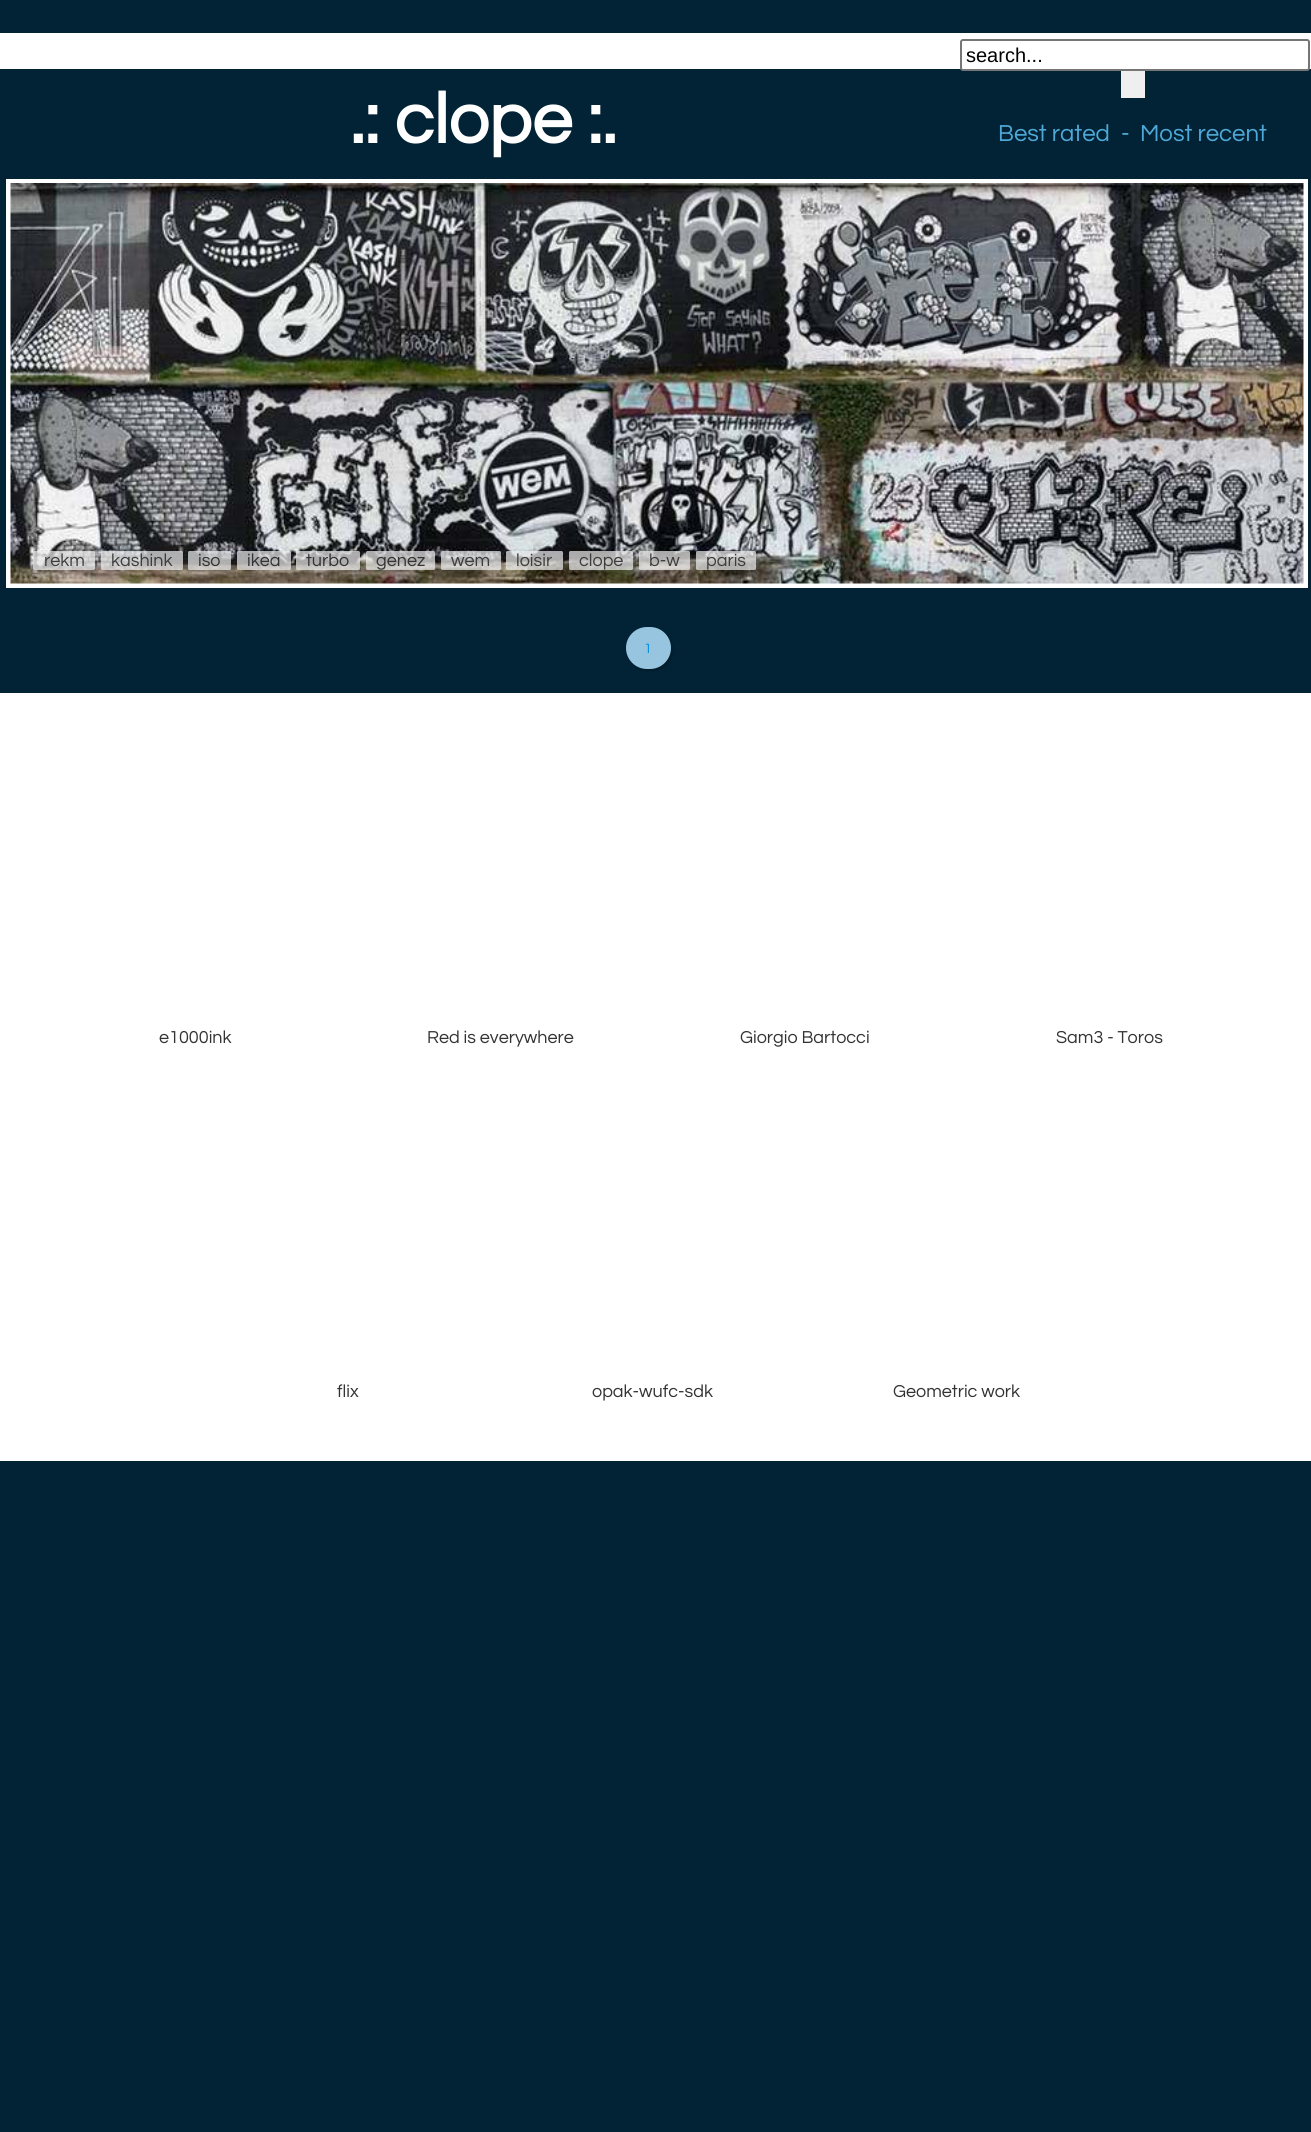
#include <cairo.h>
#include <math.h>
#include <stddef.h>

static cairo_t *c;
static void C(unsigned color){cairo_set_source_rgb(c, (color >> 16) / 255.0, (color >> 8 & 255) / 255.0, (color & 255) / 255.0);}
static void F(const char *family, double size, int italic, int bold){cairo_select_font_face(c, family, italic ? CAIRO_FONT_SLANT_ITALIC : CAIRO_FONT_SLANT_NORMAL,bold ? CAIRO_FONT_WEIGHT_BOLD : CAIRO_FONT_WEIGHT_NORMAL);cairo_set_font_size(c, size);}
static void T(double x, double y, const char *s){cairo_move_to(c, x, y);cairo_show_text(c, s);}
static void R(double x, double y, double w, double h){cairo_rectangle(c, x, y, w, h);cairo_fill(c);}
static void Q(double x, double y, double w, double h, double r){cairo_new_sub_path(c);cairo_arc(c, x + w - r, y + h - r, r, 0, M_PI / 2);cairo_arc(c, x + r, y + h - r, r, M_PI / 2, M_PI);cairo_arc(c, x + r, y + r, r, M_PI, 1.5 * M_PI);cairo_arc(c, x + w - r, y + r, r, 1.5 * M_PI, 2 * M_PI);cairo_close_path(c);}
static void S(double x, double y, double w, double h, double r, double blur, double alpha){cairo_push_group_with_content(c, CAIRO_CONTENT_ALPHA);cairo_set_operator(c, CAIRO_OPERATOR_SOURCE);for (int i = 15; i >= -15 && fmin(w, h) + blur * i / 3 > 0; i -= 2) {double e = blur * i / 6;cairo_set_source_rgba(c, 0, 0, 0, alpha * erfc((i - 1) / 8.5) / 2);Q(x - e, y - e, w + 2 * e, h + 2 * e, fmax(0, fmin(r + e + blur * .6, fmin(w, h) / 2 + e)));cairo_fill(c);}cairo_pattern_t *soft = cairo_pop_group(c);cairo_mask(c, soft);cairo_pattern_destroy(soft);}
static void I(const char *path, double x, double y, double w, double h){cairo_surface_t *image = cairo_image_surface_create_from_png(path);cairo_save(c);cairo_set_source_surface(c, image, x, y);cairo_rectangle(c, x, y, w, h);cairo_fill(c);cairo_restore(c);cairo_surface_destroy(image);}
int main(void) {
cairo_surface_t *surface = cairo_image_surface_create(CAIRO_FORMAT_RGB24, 1311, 2132);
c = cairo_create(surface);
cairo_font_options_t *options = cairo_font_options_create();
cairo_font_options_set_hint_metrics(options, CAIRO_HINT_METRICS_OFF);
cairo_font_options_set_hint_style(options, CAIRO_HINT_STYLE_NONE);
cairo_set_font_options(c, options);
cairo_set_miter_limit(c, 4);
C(0x012335);
cairo_paint(c);
F("Questrial",72,0,1);
C(0xffffff);
T(350,143,".: clope :.");
R(0,33,1311,36);
Q(961,40,348,30,2);
cairo_fill_preserve(c);
C(0x767676);
cairo_stroke(c);
F("Liberation Sans",20,0,0);
C(0x000000);
T(966,62,"search...");
C(0xefefef);
R(1121,71,24,27);
F("Questrial",24,0,0);
C(0x4fa9d8);
T(998,141,"Best rated");
T(1121,141,"-");
T(1140,141,"Most recent");
cairo_rectangle(c,8.5,181.5,1297,404);
C(0xffffff);
cairo_set_line_width(c,5);
cairo_stroke(c);
I("1.png",10,183,1294,401);
cairo_set_source_rgba(c,0.937,0.937,0.937,0.7);
Q(33,551,62,19,1.5);
cairo_fill(c);
F("Questrial",18,0,0);
C(0x3d3d3d);
T(44,566,"rekm");
cairo_set_source_rgba(c,0.937,0.937,0.937,0.7);
Q(101,551,82,19,1.5);
cairo_fill(c);
C(0x3d3d3d);
T(111,566,"kashink");
cairo_set_source_rgba(c,0.937,0.937,0.937,0.7);
Q(188,551,43,19,1.5);
cairo_fill(c);
C(0x333333);
T(198,566,"iso");
cairo_set_source_rgba(c,0.937,0.937,0.937,0.7);
Q(237,551,54,19,1.5);
cairo_fill(c);
C(0x333333);
T(247,566,"ikea");
cairo_set_source_rgba(c,0.937,0.937,0.937,0.7);
Q(296,551,64,19,1.5);
cairo_fill(c);
C(0x333333);
T(306,566,"turbo");
cairo_set_source_rgba(c,0.937,0.937,0.937,0.7);
Q(366,551,69,19,1.5);
cairo_fill(c);
C(0x333333);
T(376,566,"genez");
cairo_set_source_rgba(c,0.937,0.937,0.937,0.7);
Q(441,551,60,19,1.5);
cairo_fill(c);
C(0x3d3d3d);
T(451,566,"wem");
cairo_set_source_rgba(c,0.937,0.937,0.937,0.7);
Q(506,551,57,19,1.5);
cairo_fill(c);
C(0x3d3d3d);
T(516,566,"loisir");
cairo_set_source_rgba(c,0.937,0.937,0.937,0.7);
Q(569,551,64,19,1.5);
cairo_fill(c);
C(0x3d3d3d);
T(579,566,"clope");
cairo_set_source_rgba(c,0.937,0.937,0.937,0.7);
Q(639,551,51,19,1.5);
cairo_fill(c);
C(0x3d3d3d);
T(649,566,"b-w");
cairo_set_source_rgba(c,0.937,0.937,0.937,0.7);
Q(696,551,60,19,1.5);
cairo_fill(c);
C(0x3d3d3d);
T(706,566,"paris");
C(0x000000);
S(629,630,42,39,19.5,2,.55);
C(0x97c5df);
Q(626,627,45,42,21);
cairo_fill(c);
F("Questrial",14,0,0);
C(0x008ddf);
T(644,653,"1");
C(0xffffff);
R(0,693,1311,768);
F("Questrial",18,0,0);
C(0x333333);
T(159,1043,"e1000ink");
T(427,1043,"Red is everywhere");
T(740,1043,"Giorgio Bartocci");
T(1056,1043,"Sam3 - Toros");
T(337,1397,"flix");
T(592,1397,"opak-wufc-sdk");
T(893,1397,"Geometric work");
cairo_surface_write_to_png(surface, "o.png");
cairo_font_options_destroy(options);
cairo_destroy(c);
cairo_surface_destroy(surface);
return 0;
}
